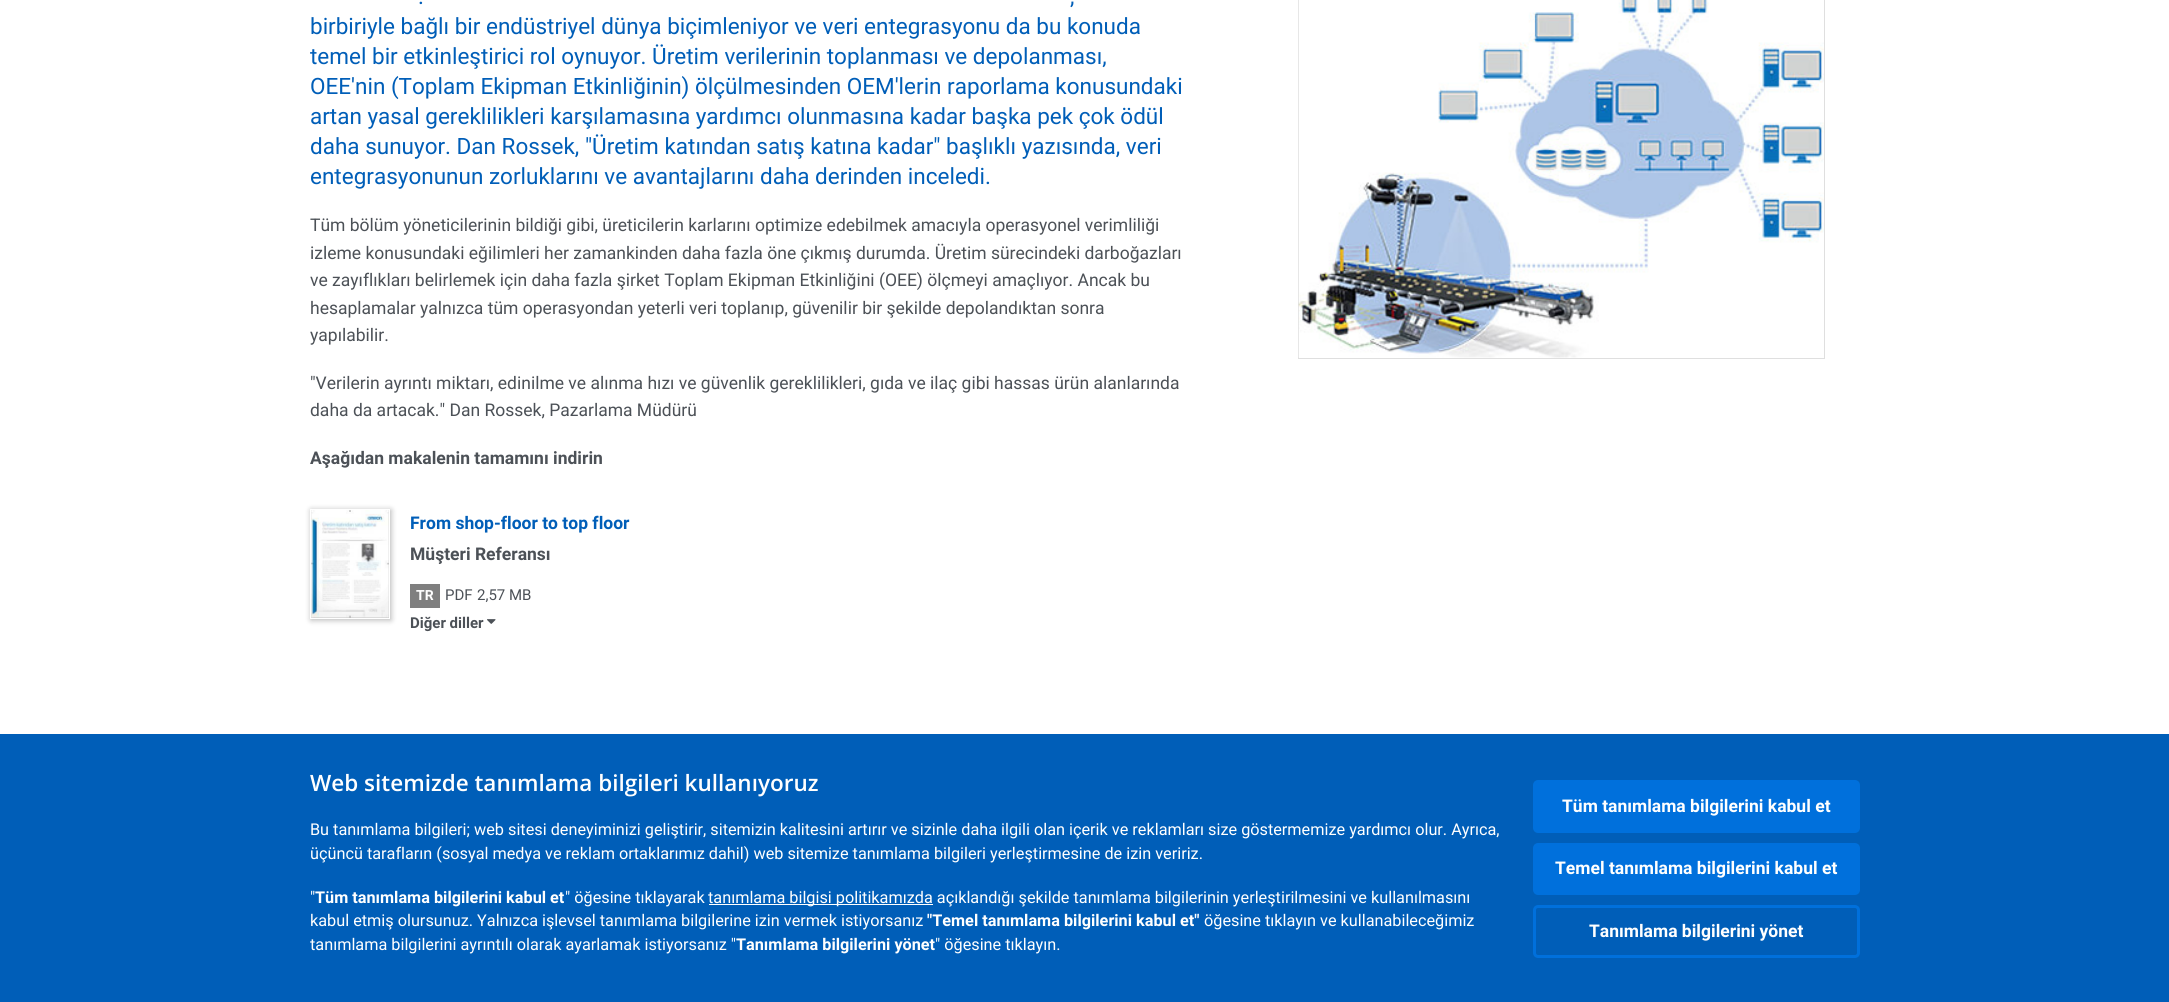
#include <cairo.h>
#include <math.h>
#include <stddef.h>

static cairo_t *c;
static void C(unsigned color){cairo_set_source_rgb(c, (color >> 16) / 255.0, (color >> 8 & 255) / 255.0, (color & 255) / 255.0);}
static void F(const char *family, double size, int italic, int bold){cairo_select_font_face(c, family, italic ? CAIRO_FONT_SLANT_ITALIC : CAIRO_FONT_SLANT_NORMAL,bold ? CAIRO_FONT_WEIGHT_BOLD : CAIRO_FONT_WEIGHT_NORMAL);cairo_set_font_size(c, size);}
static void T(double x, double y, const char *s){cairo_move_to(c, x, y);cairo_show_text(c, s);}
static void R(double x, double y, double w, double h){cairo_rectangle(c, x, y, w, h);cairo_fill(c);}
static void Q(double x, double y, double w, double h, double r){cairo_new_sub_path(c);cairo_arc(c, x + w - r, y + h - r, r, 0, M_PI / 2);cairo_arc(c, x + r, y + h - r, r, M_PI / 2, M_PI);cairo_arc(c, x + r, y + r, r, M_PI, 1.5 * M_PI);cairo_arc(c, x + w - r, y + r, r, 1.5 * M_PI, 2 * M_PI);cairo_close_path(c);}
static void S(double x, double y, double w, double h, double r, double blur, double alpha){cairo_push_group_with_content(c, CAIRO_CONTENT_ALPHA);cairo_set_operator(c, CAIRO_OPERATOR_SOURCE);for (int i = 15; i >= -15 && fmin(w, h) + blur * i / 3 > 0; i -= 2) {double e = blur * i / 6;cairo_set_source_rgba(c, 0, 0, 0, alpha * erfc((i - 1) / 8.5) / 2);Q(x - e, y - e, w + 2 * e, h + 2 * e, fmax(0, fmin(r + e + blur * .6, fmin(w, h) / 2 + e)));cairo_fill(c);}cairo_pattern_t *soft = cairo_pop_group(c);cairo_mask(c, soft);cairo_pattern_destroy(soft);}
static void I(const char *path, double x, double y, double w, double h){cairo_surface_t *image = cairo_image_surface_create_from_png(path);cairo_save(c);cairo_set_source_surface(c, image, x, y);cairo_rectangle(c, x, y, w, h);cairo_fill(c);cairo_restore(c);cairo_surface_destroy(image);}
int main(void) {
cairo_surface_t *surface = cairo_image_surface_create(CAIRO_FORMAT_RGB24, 2169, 1002);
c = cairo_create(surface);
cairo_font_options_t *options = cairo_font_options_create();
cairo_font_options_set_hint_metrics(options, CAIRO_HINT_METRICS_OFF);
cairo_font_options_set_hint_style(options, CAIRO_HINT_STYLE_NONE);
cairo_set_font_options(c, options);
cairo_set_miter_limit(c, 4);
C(0xffffff);
cairo_paint(c);
F("Roboto",22.5,0,0);
C(0x005eb8);
T(418,4,".");
T(1070,4,",");
T(310,34,"birbiriyle bağlı bir endüstriyel dünya biçimleniyor ve veri entegrasyonu da bu konuda");
T(310,64,"temel bir etkinleştirici rol oynuyor. Üretim verilerinin toplanması ve depolanması,");
T(310,94,"OEE'nin (Toplam Ekipman Etkinliğinin) ölçülmesinden OEM'lerin raporlama konusundaki");
T(310,124,"artan yasal gereklilikleri karşılamasına yardımcı olunmasına kadar başka pek çok ödül");
T(310,154,"daha sunuyor. Dan Rossek, \"Üretim katından satış katına kadar\" başlıklı yazısında, veri");
T(310,184,"entegrasyonunun zorluklarını ve avantajlarını daha derinden inceledi.");
F("Roboto",17.5,0,0);
C(0x4c5157);
T(310,231,"Tüm bölüm yöneticilerinin bildiği gibi, üreticilerin karlarını optimize edebilmek amacıyla operasyonel verimliliği");
T(310,259,"izleme konusundaki eğilimleri her zamankinden daha fazla öne çıkmış durumda. Üretim sürecindeki darboğazları");
T(310,286,"ve zayıflıkları belirlemek için daha fazla şirket Toplam Ekipman Etkinliğini (OEE) ölçmeyi amaçlıyor. Ancak bu");
T(310,314,"hesaplamalar yalnızca tüm operasyondan yeterli veri toplanıp, güvenilir bir şekilde depolandıktan sonra");
T(310,341,"yapılabilir.");
T(310,389,"\"Verilerin ayrıntı miktarı, edinilme ve alınma hızı ve güvenlik gereklilikleri, gıda ve ilaç gibi hassas ürün alanlarında");
T(310,416,"daha da artacak.\" Dan Rossek, Pazarlama Müdürü");
F("Roboto",17.5,0,1);
T(310,464,"Aşağıdan makalenin tamamını indirin");
C(0x000000);
S(311,510,80,110,0,3,.3);
cairo_rectangle(c,310.5,509.5,79,109);
C(0xffffff);
cairo_set_line_width(c,1);
cairo_stroke(c);
I("1.png",311,510,78,108);
I("2.png",311,560,78,58);
C(0x005eb8);
T(410,529,"From shop-floor to top floor");
C(0x4c5157);
T(410,560,"Müşteri Referansı");
C(0x7f7f7f);
R(410,584,30,24);
F("Roboto",14,0,1);
C(0xffffff);
T(416,600,"TR");
F("Roboto",15,0,0);
C(0x4c5157);
T(445,600,"PDF");
T(477,600,"2,57 MB");
F("Roboto",15,0,1);
T(410,628,"Diğer diller");
I("3.png",487,619,9,5);
cairo_rectangle(c,1298.5,-.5,526,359);
C(0xdfdfdf);
cairo_stroke(c);
I("4.png",1298,0,526,358);
C(0x005eb8);
R(0,734,2169,268);
F("Open Sans SemiBold",22.5,0,0);
C(0xffffff);
T(310,791,"Web sitemizde tanımlama bilgileri kullanıyoruz");
F("Roboto",16.25,0,0);
T(310,835,"Bu tanımlama bilgileri; web sitesi deneyiminizi geliştirir, sitemizin kalitesini artırır ve sizinle daha ilgili olan içerik ve reklamları size göstermemize yardımcı olur. Ayrıca,");
T(310,859,"üçüncü tarafların (sosyal medya ve reklam ortaklarımız dahil) web sitemize tanımlama bilgileri yerleştirmesine de izin veririz.");
T(310,903,"\"");
F("Roboto",16.25,0,1);
T(315,903,"Tüm tanımlama bilgilerini kabul et");
F("Roboto",16.25,0,0);
T(565,903,"\" öğesine tıklayarak");
R(709,904,224,1);
T(708,903,"tanımlama bilgisi politikamızda açıklandığı şekilde tanımlama bilgilerinin yerleştirilmesini ve kullanılmasını");
T(310,926,"kabul etmiş olursunuz. Yalnızca işlevsel tanımlama bilgilerine izin vermek istiyorsanız");
F("Roboto",16.25,0,1);
T(927,926,"\"Temel tanımlama bilgilerini kabul et\"");
F("Roboto",16.25,0,0);
T(1204,926,"öğesine tıklayın ve kullanabileceğimiz");
T(310,950,"tanımlama bilgilerini ayrıntılı olarak ayarlamak istiyorsanız \"");
F("Roboto",16.25,0,1);
T(736,950,"Tanımlama bilgilerini yönet");
F("Roboto",16.25,0,0);
T(935,950,"\" öğesine tıklayın.");
C(0x0070dc);
Q(1534.5,781.5,324,50,3.5);
cairo_fill_preserve(c);
cairo_set_line_width(c,3);
cairo_stroke(c);
F("Roboto",17.5,0,1);
C(0xffffff);
T(1562,812,"Tüm tanımlama bilgilerini kabul et");
C(0x0070dc);
Q(1534.5,844.5,324,49,3.5);
cairo_fill_preserve(c);
cairo_stroke(c);
C(0xffffff);
T(1555,874,"Temel tanımlama bilgilerini kabul et");
Q(1534.5,906.5,324,50,3.5);
C(0x0070dc);
cairo_stroke(c);
C(0xffffff);
T(1589,937,"Tanımlama bilgilerini yönet");
cairo_surface_write_to_png(surface, "o.png");
cairo_font_options_destroy(options);
cairo_destroy(c);
cairo_surface_destroy(surface);
return 0;
}
